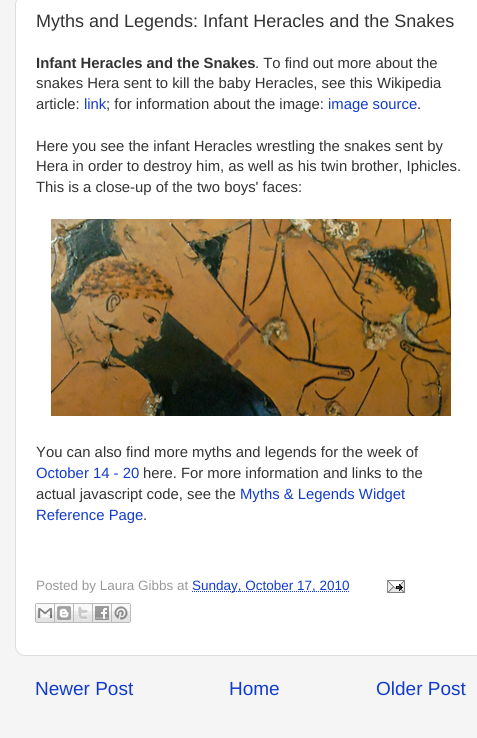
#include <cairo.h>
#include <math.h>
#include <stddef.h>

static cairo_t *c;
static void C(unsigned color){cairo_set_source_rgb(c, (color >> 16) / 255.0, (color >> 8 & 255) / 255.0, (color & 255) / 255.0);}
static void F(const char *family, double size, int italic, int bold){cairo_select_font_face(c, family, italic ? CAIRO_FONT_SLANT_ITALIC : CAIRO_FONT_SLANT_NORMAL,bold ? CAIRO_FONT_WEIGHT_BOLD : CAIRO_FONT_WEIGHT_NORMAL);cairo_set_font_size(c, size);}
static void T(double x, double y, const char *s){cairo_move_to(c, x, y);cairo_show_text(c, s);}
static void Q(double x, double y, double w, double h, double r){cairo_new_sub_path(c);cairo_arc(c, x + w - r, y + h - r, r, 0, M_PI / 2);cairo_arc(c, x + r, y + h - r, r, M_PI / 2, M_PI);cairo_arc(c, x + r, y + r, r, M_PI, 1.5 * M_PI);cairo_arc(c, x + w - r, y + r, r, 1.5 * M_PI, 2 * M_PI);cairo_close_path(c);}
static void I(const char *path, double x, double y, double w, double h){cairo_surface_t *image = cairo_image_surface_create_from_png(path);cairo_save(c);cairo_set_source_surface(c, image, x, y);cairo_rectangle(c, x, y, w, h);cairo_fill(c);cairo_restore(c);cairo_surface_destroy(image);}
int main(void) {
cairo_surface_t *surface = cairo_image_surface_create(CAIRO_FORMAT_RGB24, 477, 738);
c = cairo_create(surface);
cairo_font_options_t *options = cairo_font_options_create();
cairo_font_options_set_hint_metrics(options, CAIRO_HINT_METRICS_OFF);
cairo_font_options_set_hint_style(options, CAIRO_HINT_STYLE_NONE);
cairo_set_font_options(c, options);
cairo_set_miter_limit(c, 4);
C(0xf5f5f5);
cairo_paint(c);
C(0xffffff);
Q(15.5,-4.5,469,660,9.5);
cairo_fill_preserve(c);
C(0xdddddd);
cairo_set_line_width(c,1);
cairo_stroke(c);
F("Liberation Sans",18,0,0);
C(0x333333);
T(36,27,"Myths and Legends: Infant Heracles and the Snakes");
F("Liberation Sans",14.85,0,1);
T(36,68,"Infant Heracles and the Snakes");
F("Liberation Sans",14.85,0,0);
T(255,68,". To find out more about the");
T(36,88,"snakes Hera sent to kill the baby Heracles, see this Wikipedia");
T(36,109,"article:");
C(0x113bcc);
T(84,109,"link");
C(0x333333);
T(106,109,"; for information about the image:");
C(0x113bcc);
T(328,109,"image source");
C(0x333333);
T(417,109,".");
T(36,151,"Here you see the infant Heracles wrestling the snakes sent by");
T(36,171,"Hera in order to destroy him, as well as his twin brother, Iphicles.");
T(36,192,"This is a close-up of the two boys' faces:");
I("1.png",51,219,400,197);
T(36,457,"You can also find more myths and legends for the week of");
C(0x113bcc);
T(36,478,"October 14 - 20");
C(0x333333);
T(143,478,"here. For more information and links to the");
T(36,499,"actual javascript code, see the");
C(0x113bcc);
T(240,499,"Myths & Legends Widget");
T(36,520,"Reference Page");
C(0x333333);
T(143,520,".");
F("Liberation Sans",13.5,0,0);
C(0x999999);
T(36,590,"Posted by Laura Gibbs at");
cairo_new_path(c);
cairo_move_to(c,192,591.5);
cairo_line_to(c,350,591.5);
C(0x113bcc);
cairo_set_dash(c,(double[]){1,1},2,0);
cairo_stroke(c);
T(192,590,"Sunday, October 17, 2010");
I("2.png",387,580,18,13);
I("3.png",35,603,20,20);
I("4.png",55,603,19,20);
I("5.png",74,603,19,20);
I("6.png",93,603,19,20);
I("7.png",112,603,19,20);
F("Liberation Sans",19,0,0);
T(35,695,"Newer Post");
T(229,695,"Home");
T(376,695,"Older Post");
cairo_surface_write_to_png(surface, "o.png");
cairo_font_options_destroy(options);
cairo_destroy(c);
cairo_surface_destroy(surface);
return 0;
}
